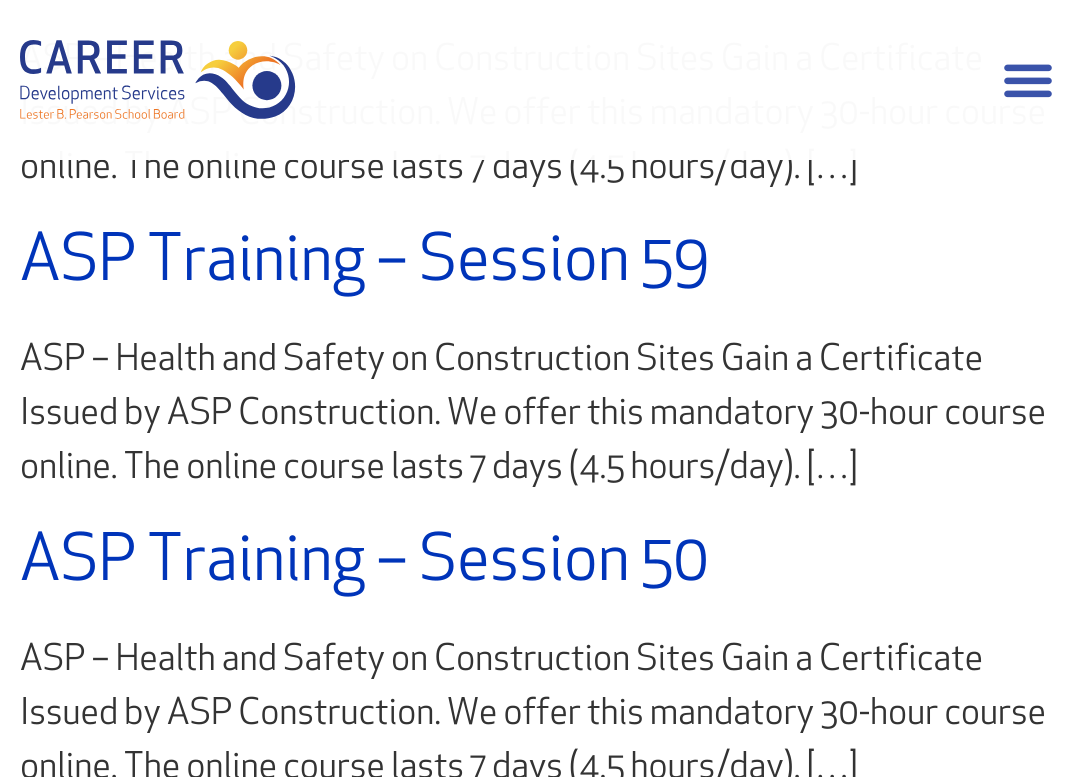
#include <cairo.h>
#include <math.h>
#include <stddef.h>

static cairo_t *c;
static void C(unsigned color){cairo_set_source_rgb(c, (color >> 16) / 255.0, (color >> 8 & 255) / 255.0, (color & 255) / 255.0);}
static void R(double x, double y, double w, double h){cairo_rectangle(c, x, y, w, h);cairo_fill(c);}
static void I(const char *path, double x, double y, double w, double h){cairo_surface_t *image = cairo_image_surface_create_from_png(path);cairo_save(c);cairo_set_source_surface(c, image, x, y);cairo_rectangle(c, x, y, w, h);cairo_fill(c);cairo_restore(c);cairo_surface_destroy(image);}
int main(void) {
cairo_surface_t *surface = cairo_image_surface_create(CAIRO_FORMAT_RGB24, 1088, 777);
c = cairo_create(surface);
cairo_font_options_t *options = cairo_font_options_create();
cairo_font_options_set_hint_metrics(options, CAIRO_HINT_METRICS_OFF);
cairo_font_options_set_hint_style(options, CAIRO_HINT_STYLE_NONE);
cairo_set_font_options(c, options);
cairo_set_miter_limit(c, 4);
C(0xffffff);
cairo_paint(c);
I("3.png",21,42,961,37);
I("4.png",23,96,1021,37);
I("5.png",22,148,834,39);
cairo_set_source_rgba(c,1,1,1,0.97);
R(21,42,1023,118);
I("1.png",20,40,276,79);
I("2.png",1004,64,48,34);
I("6.png",21,231,686,66);
I("3.png",21,342,961,37);
I("4.png",23,396,1021,37);
I("5.png",22,448,834,39);
I("7.png",21,531,685,66);
I("3.png",21,642,961,37);
I("4.png",23,696,1021,37);
I("8.png",22,748,834,29);
cairo_surface_write_to_png(surface, "o.png");
cairo_font_options_destroy(options);
cairo_destroy(c);
cairo_surface_destroy(surface);
return 0;
}
